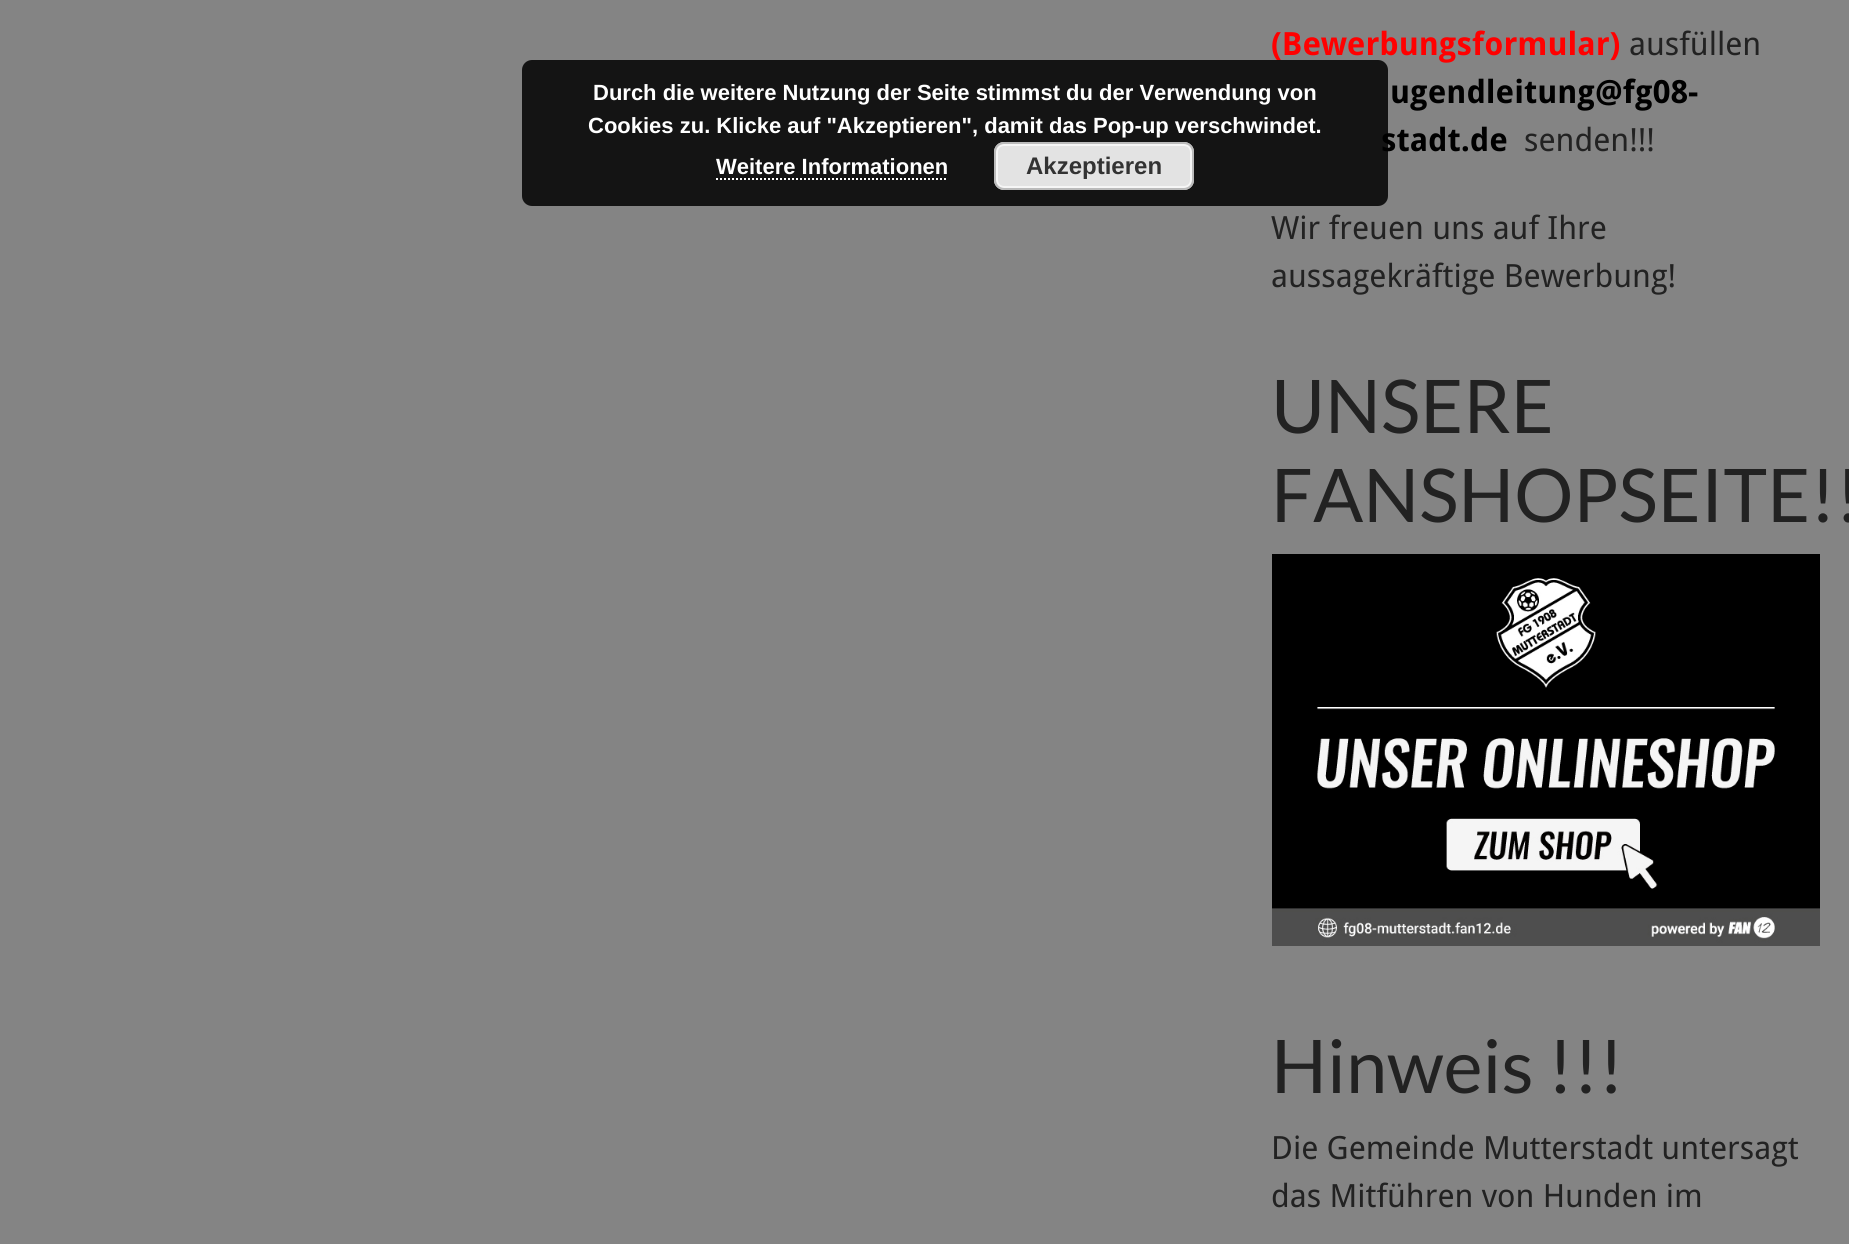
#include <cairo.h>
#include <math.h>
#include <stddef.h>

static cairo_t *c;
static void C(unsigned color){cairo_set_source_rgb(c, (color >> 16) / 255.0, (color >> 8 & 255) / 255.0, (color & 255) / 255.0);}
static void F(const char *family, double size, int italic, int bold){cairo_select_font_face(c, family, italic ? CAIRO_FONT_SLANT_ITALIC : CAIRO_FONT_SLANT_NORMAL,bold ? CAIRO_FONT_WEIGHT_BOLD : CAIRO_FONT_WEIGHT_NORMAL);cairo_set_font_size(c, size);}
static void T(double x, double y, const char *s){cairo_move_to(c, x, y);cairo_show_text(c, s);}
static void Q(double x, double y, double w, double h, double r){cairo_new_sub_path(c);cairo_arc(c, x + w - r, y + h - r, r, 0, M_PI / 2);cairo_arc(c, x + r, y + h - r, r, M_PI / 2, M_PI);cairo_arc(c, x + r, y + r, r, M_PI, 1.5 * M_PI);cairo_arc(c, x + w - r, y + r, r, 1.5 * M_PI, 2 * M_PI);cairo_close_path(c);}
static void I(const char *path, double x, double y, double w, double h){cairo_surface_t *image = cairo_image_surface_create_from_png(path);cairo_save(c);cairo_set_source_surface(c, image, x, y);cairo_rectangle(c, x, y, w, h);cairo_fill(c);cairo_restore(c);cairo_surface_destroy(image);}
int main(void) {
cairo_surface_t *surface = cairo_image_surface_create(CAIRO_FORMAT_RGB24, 1849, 1244);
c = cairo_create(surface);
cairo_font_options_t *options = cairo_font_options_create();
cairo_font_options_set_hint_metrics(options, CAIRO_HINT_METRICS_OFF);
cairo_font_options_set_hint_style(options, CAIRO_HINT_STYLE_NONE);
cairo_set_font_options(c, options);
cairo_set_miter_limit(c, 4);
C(0x848484);
cairo_paint(c);
F("Droid Sans",32,0,1);
C(0xff0000);
T(1271,55,"(Bewerbungsformular)");
C(0x000000);
T(1381,151,"stadt.de");
cairo_set_source_rgba(c,0,0,0,0.85);
Q(522,60,866,146,10);
cairo_fill(c);
F("Liberation Sans",22,0,1);
C(0xffffff);
T(593,100,"Durch die weitere Nutzung der Seite stimmst du der Verwendung von");
T(588,133,"Cookies zu. Klicke auf \"Akzeptieren\", damit das Pop-up verschwindet.");
T(716,174,"Weitere Informationen");
cairo_new_path(c);
cairo_move_to(c,716,179);
cairo_line_to(c,948,179);
cairo_set_dash(c,(double[]){2,2},2,0);
cairo_stroke(c);
C(0xe3e3e3);
Q(994,142,200,48,10);
cairo_fill(c);
Q(997,145,194,42,7);
C(0xf6f6f6);
cairo_set_dash(c,NULL,0,0);
cairo_stroke(c);
Q(995,143,198,46,9);
C(0xbbbbbb);
cairo_stroke(c);
F("Liberation Sans",24,0,1);
C(0x333333);
T(1026,174,"Akzeptieren");
F("Droid Sans",32,0,0);
C(0x222222);
T(1629,55,"ausfüllen");
F("Droid Sans",32,0,1);
C(0x000000);
T(1390,103,"ugendleitung@fg08-");
F("Droid Sans",32,0,0);
C(0x222222);
T(1524,151,"senden!!!");
T(1271,239,"Wir freuen uns auf Ihre");
T(1271,287,"aussagekräftige Bewerbung!");
F("Lato",74,0,0);
T(1271,433,"UNSERE");
T(1271,522,"FANSHOPSEITE!!");
I("1.png",1272,554,548,392);
T(1271,1093,"Hinweis !!!");
F("Droid Sans",32,0,0);
T(1271,1159,"Die Gemeinde Mutterstadt untersagt");
T(1271,1207,"das Mitführen von Hunden im");
cairo_surface_write_to_png(surface, "o.png");
cairo_font_options_destroy(options);
cairo_destroy(c);
cairo_surface_destroy(surface);
return 0;
}
